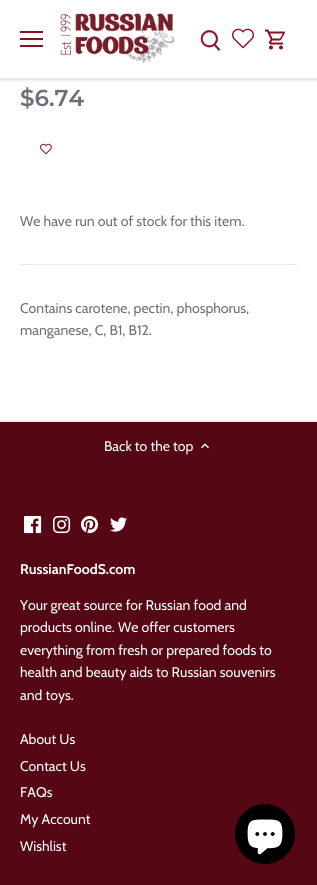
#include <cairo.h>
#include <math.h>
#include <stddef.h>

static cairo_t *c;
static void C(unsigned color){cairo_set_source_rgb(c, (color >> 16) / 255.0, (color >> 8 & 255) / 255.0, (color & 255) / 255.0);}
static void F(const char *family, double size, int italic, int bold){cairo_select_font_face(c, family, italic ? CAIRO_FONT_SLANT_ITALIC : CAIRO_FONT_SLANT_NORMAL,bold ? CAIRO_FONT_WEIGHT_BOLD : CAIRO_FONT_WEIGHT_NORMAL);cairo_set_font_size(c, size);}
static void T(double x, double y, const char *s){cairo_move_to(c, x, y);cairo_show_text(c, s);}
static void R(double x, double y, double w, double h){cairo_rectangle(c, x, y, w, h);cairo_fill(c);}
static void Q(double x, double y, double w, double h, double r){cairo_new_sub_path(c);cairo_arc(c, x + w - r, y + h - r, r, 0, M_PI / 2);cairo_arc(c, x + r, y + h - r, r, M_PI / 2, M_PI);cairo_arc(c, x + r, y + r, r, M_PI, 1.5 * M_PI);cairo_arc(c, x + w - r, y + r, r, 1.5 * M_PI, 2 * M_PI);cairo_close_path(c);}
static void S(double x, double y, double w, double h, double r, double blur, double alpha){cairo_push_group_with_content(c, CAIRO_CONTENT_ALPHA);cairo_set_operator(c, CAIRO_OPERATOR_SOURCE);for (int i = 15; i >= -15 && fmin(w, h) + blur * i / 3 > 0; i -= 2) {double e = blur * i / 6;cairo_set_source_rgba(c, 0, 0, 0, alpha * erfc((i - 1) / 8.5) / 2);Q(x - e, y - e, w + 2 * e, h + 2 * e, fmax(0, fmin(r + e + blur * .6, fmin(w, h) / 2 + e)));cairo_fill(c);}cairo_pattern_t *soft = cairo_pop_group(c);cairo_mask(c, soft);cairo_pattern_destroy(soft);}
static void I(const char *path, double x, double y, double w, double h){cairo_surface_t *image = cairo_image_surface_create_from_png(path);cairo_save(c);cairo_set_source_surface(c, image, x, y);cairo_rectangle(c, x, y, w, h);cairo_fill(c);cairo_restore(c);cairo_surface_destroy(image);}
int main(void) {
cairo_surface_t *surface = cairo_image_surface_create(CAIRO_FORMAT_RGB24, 317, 885);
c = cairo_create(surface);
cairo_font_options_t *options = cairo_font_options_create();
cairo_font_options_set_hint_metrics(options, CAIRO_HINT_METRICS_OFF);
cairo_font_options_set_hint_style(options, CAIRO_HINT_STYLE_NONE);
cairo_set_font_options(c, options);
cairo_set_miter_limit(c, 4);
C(0x560714);
cairo_paint(c);
C(0xffffff);
R(0,80,317,341);
C(0x000000);
S(-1,-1,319,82,0,1.5,.08);
C(0xffffff);
R(0,0,317,78);
C(0xe7e7e7);
R(0,78,317,2);
C(0x841224);
R(20,31,23,2);
R(20,38,23,2);
R(20,45,23,2);
I("1.png",60,13,115,51);
I("2.png",200,30,21,21);
I("3.png",232,28,22,21);
I("4.png",265,29,20,21);
F("Montserrat SemiBold",23,0,0);
C(0x6b7177);
T(20,106,"$6.74");
I("5.png",40,143,12,12);
F("Cabin",14,0,0);
T(20,226,"We have run out of stock for this item.");
C(0xede8dd);
R(20,264,277,1);
C(0x6b7177);
T(20,313,"Contains carotene, pectin, phosphorus,");
T(20,335,"manganese, C, B1, B12.");
C(0xede8dd);
R(0,421,317,1);
C(0xffffff);
T(104,451,"Back to the top");
I("6.png",201,443,8,6);
I("7.png",24,516,18,18);
I("8.png",53,516,18,18);
I("9.png",81,516,18,18);
I("10.png",110,517,17,15);
F("Cabin",14,0,1);
T(20,574,"RussianFoodS.com");
F("Cabin",14,0,0);
T(20,610,"Your great source for Russian food and");
T(20,632,"products online. We offer customers");
T(20,655,"everything from fresh or prepared foods to");
T(20,677,"health and beauty aids to Russian souvenirs");
T(20,700,"and toys.");
T(20,744,"About Us");
T(20,771,"Contact Us");
T(20,797,"FAQs");
T(20,824,"My Account");
T(20,851,"Wishlist");
C(0x000000);
cairo_new_path(c);
cairo_arc(c,265,834,30,0,2 * M_PI);
cairo_fill(c);
I("11.png",247,819,36,36);
cairo_surface_write_to_png(surface, "o.png");
cairo_font_options_destroy(options);
cairo_destroy(c);
cairo_surface_destroy(surface);
return 0;
}
